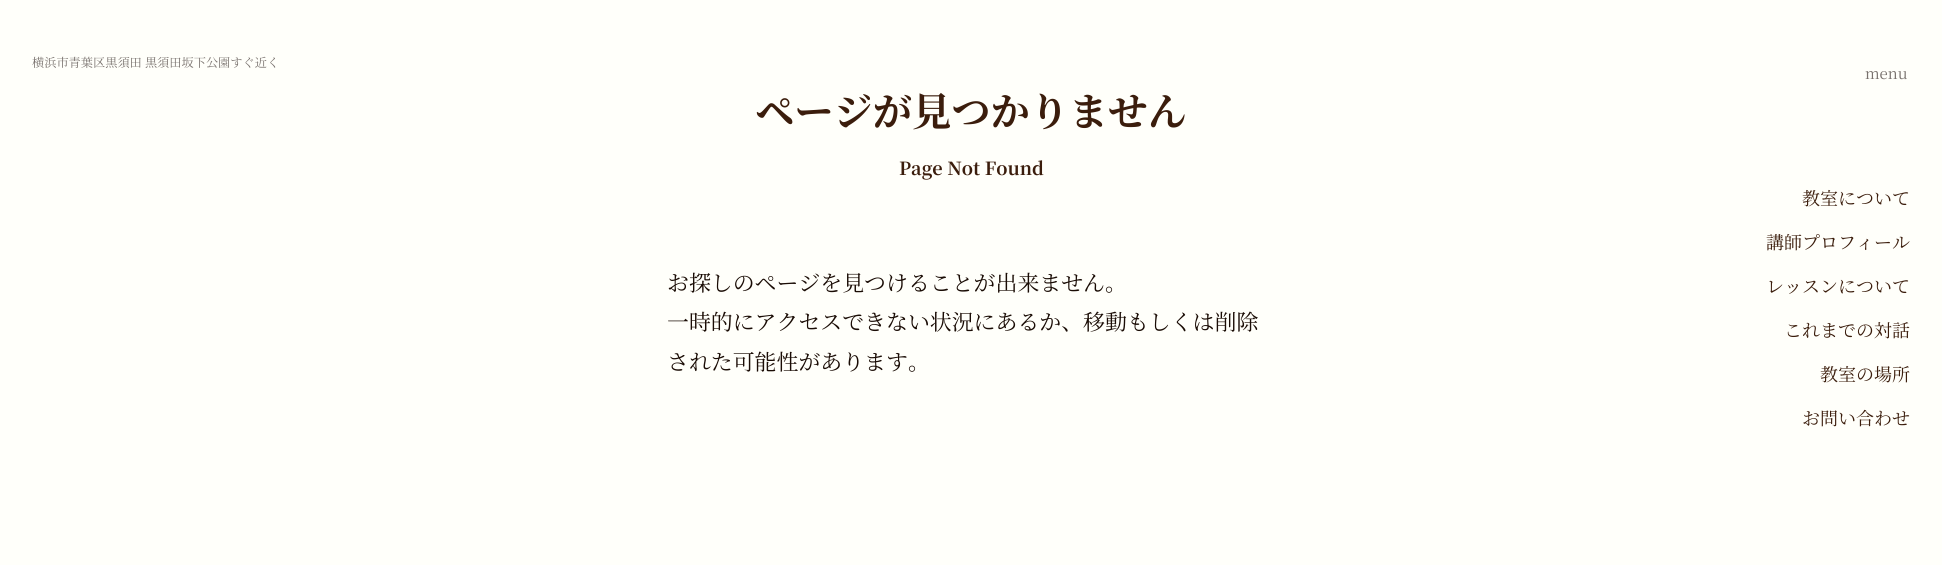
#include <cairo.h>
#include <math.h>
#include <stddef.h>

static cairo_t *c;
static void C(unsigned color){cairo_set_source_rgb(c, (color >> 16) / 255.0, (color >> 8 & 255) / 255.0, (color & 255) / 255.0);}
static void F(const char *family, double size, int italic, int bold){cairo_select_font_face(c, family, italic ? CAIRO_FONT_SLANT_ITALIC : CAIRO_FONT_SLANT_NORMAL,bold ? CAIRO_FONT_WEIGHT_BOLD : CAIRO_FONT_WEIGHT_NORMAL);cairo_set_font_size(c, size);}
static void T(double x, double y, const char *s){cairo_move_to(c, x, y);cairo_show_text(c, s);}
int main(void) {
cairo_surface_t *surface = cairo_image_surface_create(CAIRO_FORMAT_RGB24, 1942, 565);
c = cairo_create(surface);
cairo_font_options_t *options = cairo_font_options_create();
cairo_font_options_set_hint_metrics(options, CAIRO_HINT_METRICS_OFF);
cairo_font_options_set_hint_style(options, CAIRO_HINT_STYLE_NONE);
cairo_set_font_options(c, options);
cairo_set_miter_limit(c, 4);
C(0xfffffa);
cairo_paint(c);
F("Noto Serif JP",12.2,0,0);
C(0x78716d);
T(32,67,"横浜市青葉区黒須田 黒須田坂下公園すぐ近く");
F("Noto Serif JP",15,0,0);
T(1865,79,"menu");
F("Noto Serif JP",18,0,0);
C(0x3b1d0c);
T(1802,205,"教室について");
T(1766,249,"講師プロフィール");
T(1766,293,"レッスンについて");
T(1784,337,"これまでの対話");
T(1820,381,"教室の場所");
T(1802,425,"お問い合わせ");
F("Noto Serif JP",39.25,0,1);
T(755,126,"ページが見つかりません");
F("Noto Serif JP",18,0,1);
T(899,175,"Page Not Found");
F("Noto Serif JP",21.9,0,0);
C(0x1a0c05);
T(667,291,"お探しのページを見つけることが出来ません。");
T(667,330,"一時的にアクセスできない状況にあるか、移動もしくは削除");
T(667,370,"された可能性があります。");
cairo_surface_write_to_png(surface, "o.png");
cairo_font_options_destroy(options);
cairo_destroy(c);
cairo_surface_destroy(surface);
return 0;
}
